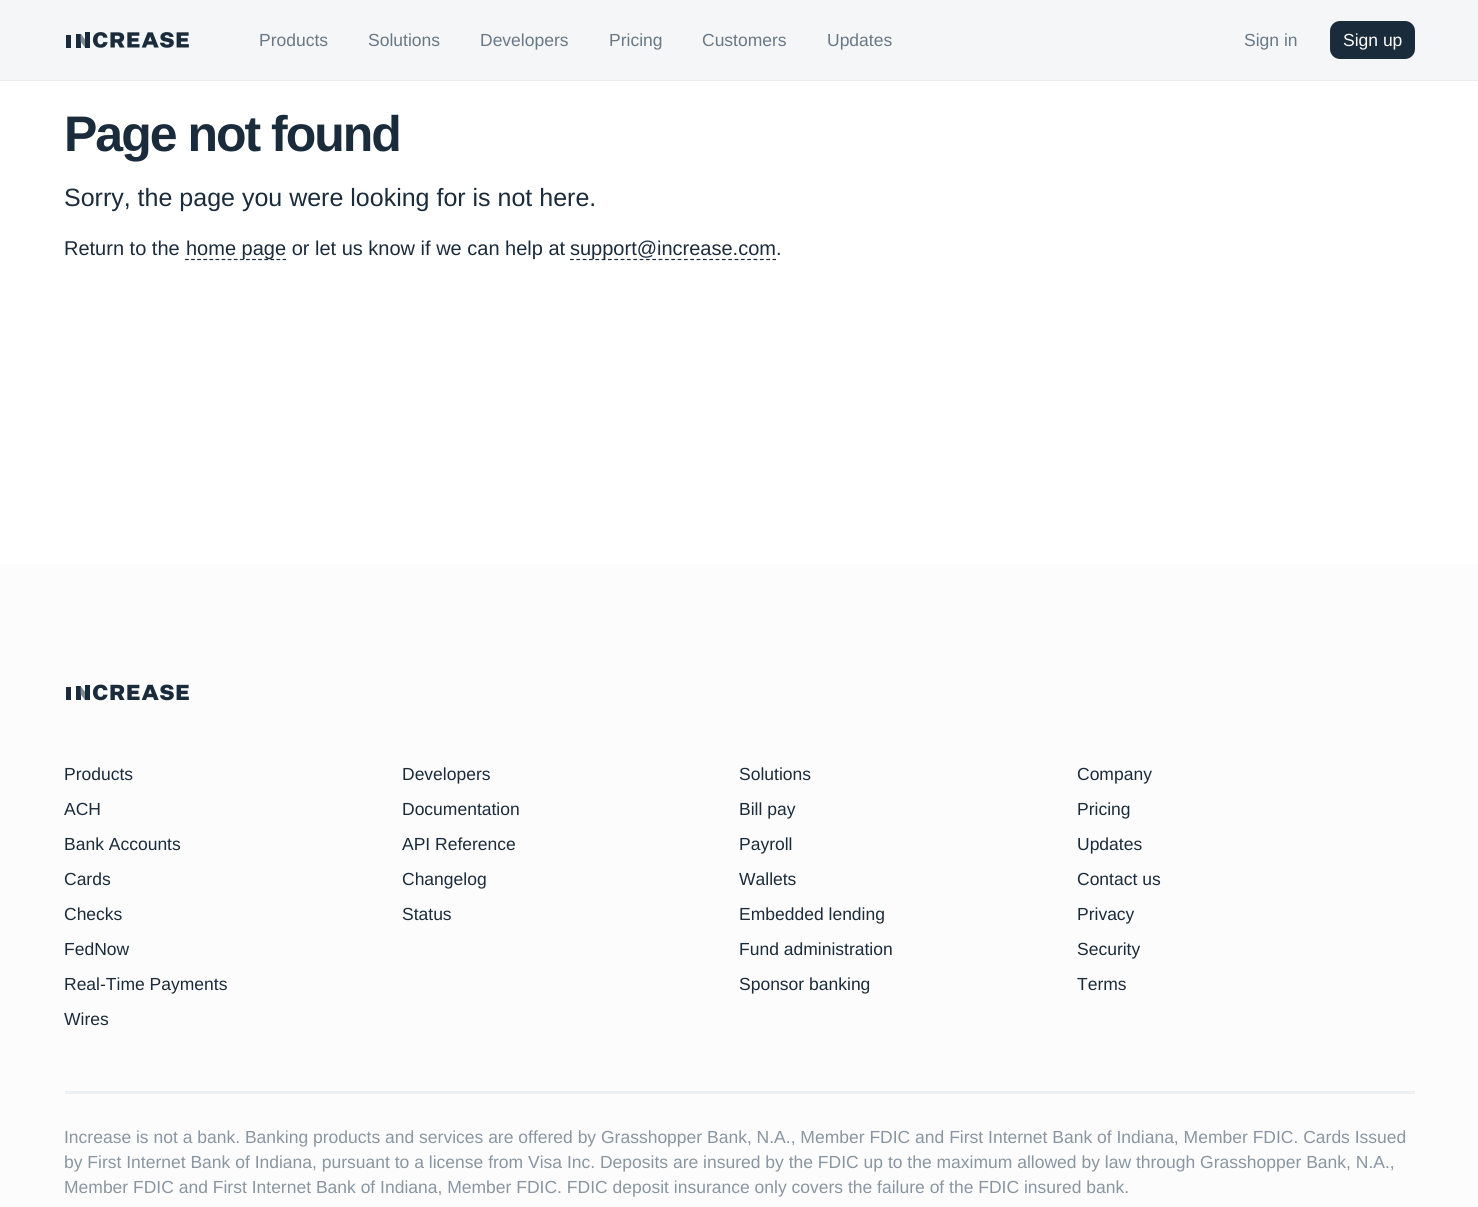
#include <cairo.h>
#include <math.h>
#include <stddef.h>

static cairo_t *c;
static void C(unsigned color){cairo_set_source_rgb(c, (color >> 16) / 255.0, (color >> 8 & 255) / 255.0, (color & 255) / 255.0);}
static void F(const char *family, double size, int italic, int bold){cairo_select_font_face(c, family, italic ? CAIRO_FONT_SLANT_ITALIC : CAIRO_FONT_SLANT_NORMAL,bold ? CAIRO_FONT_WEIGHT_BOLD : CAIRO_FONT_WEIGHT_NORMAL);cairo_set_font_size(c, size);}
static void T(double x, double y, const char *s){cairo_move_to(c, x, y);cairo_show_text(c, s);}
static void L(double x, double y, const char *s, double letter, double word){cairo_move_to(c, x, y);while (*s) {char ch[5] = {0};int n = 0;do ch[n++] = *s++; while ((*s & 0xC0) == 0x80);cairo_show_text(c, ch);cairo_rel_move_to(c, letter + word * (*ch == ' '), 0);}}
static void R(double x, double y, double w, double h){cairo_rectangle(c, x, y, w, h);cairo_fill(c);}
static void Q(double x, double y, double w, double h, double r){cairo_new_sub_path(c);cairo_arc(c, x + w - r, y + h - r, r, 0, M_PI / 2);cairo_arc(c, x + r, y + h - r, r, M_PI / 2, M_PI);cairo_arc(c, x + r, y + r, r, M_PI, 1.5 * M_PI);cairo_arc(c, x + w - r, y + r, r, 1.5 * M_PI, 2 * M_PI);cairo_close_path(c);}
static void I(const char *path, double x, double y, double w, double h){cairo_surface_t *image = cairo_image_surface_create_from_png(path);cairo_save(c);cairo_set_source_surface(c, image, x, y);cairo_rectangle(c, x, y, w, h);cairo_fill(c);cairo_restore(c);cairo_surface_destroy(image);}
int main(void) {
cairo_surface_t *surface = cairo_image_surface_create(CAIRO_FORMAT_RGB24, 1478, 1207);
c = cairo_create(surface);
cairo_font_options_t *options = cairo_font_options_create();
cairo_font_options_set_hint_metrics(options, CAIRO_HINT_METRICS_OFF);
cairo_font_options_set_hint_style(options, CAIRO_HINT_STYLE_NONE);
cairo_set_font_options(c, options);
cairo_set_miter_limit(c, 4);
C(0xffffff);
cairo_paint(c);
C(0xf5f6f7);
R(0,0,1478,80);
C(0xebeced);
R(0,80,1478,1);
I("1.png",66,32,123,16);
F("Liberation Sans",17.5,0,0);
C(0x687887);
T(259,46,"Products");
T(368,46,"Solutions");
T(480,46,"Developers");
T(609,46,"Pricing");
T(702,46,"Customers");
T(827,46,"Updates");
T(1244,46,"Sign in");
C(0x1a2b3b);
Q(1330,21,85,38,10);
cairo_fill(c);
C(0xffffff);
T(1343,46,"Sign up");
F("Liberation Sans",50,0,1);
C(0x1a2b3b);
L(64,151,"Page not found",-2,0);
F("Liberation Sans",25,0,0);
T(64,206,"Sorry, the page you were looking for is not here.");
F("Liberation Sans",20,0,0);
T(64,255,"Return to the");
cairo_new_path(c);
cairo_move_to(c,185,259.5);
cairo_line_to(c,286,259.5);
cairo_set_line_width(c,1.2);
cairo_set_dash(c,(double[]){3.75,2.35},2,0);
cairo_stroke(c);
T(186,255,"home page or let us know if we can help at");
cairo_new_path(c);
cairo_move_to(c,570,259.5);
cairo_line_to(c,776,259.5);
cairo_set_dash(c,(double[]){3.75,2.58},2,0);
cairo_stroke(c);
T(570,255,"support@increase.com.");
C(0xfcfcfc);
R(0,564,1478,643);
I("2.png",66,684,123,17);
F("Liberation Sans",17.5,0,0);
C(0x1a2b3b);
T(64,780,"Products");
T(64,815,"ACH");
T(64,850,"Bank Accounts");
T(64,885,"Cards");
T(64,920,"Checks");
T(64,955,"FedNow");
T(64,990,"Real-Time Payments");
T(64,1025,"Wires");
T(402,780,"Developers");
T(402,815,"Documentation");
T(402,850,"API Reference");
T(402,885,"Changelog");
T(402,920,"Status");
T(739,780,"Solutions");
T(739,815,"Bill pay");
T(739,850,"Payroll");
T(739,885,"Wallets");
T(739,920,"Embedded lending");
T(739,955,"Fund administration");
T(739,990,"Sponsor banking");
T(1077,780,"Company");
T(1077,815,"Pricing");
T(1077,850,"Updates");
T(1077,885,"Contact us");
T(1077,920,"Privacy");
T(1077,955,"Security");
T(1077,990,"Terms");
C(0xedf0f2);
R(65,1091,1350,3);
C(0x8995a1);
T(64,1143,"Increase is not a bank. Banking products and services are offered by Grasshopper Bank, N.A., Member FDIC and First Internet Bank of Indiana, Member FDIC. Cards Issued");
T(64,1168,"by First Internet Bank of Indiana, pursuant to a license from Visa Inc. Deposits are insured by the FDIC up to the maximum allowed by law through Grasshopper Bank, N.A.,");
T(64,1193,"Member FDIC and First Internet Bank of Indiana, Member FDIC. FDIC deposit insurance only covers the failure of the FDIC insured bank.");
cairo_surface_write_to_png(surface, "o.png");
cairo_font_options_destroy(options);
cairo_destroy(c);
cairo_surface_destroy(surface);
return 0;
}
